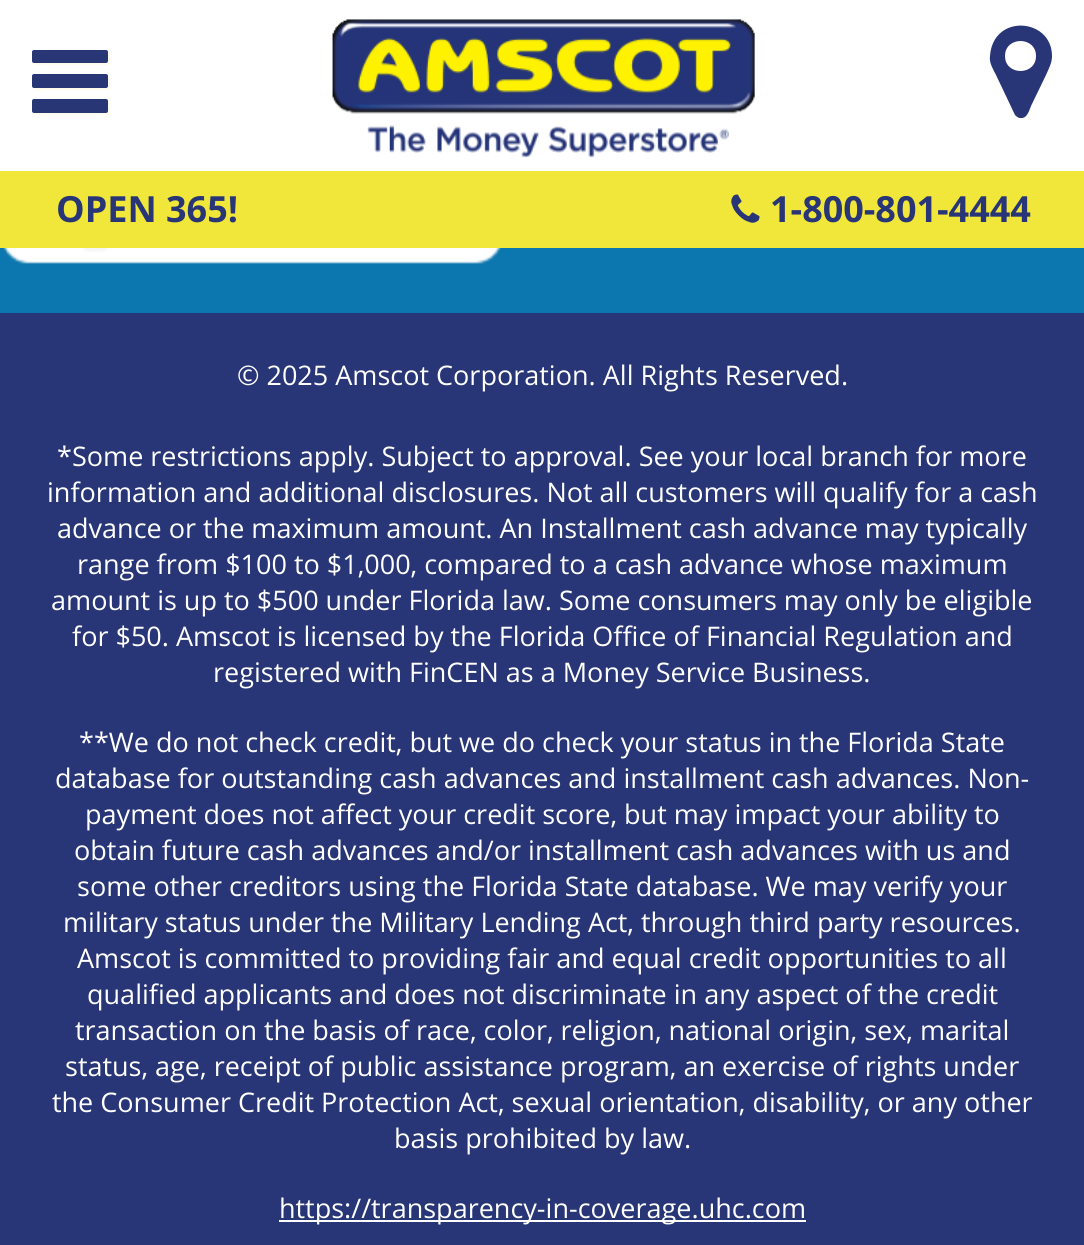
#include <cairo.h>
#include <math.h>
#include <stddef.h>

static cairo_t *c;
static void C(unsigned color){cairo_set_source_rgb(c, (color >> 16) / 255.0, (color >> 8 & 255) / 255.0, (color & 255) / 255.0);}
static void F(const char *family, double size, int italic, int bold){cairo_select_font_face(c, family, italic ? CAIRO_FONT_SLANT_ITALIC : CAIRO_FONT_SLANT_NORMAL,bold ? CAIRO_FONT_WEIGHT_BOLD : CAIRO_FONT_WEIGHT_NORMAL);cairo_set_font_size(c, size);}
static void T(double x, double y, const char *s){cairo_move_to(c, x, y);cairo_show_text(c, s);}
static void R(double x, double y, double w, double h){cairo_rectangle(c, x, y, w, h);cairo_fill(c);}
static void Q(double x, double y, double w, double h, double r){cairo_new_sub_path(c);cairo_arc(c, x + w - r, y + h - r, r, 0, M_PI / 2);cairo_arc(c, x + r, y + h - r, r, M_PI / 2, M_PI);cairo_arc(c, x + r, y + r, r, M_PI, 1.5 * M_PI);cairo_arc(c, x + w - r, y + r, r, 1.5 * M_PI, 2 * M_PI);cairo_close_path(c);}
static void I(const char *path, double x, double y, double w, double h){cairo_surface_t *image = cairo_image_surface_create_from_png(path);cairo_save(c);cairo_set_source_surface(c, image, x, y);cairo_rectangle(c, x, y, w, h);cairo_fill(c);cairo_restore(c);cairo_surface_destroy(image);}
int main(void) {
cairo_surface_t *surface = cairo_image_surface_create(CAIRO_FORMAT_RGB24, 1084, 1245);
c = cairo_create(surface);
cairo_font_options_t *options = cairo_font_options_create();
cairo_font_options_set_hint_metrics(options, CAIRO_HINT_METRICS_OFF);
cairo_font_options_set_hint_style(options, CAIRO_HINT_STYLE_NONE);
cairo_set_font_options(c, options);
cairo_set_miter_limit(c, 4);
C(0x0c77ae);
cairo_paint(c);
C(0xffffff);
R(0,0,1084,171);
C(0xfffbec);
cairo_new_path(c);
cairo_move_to(c,34,63);
cairo_curve_to(c,34,64,35,65,36,65);
cairo_line_to(c,108,65);
cairo_curve_to(c,109,65,110,64,110,63);
cairo_line_to(c,110,54);
cairo_curve_to(c,110,53,109,52,108,52);
cairo_line_to(c,108,61);
cairo_curve_to(c,108,62,107,63,106,63);
cairo_close_path(c);
cairo_fill(c);
C(0x283676);
Q(32,50,76,13,2);
cairo_fill(c);
C(0xfffbec);
cairo_new_path(c);
cairo_move_to(c,34,88);
cairo_curve_to(c,34,92,43,90,48,90);
cairo_line_to(c,96,90);
cairo_curve_to(c,111,90,110,93,110,80);
cairo_curve_to(c,110,79,110,77,108,77);
cairo_line_to(c,108,86);
cairo_curve_to(c,108,87,107,88,106,88);
cairo_close_path(c);
cairo_fill(c);
C(0x283676);
Q(32,74,76,14,2);
cairo_fill(c);
C(0xfffbec);
cairo_new_path(c);
cairo_move_to(c,34,112);
cairo_line_to(c,35,115);
cairo_line_to(c,108,115);
cairo_line_to(c,110,114);
cairo_line_to(c,110,113);
cairo_curve_to(c,110,111,111,101,108,101);
cairo_line_to(c,108,107);
cairo_curve_to(c,108,109,109,112,106,112);
cairo_close_path(c);
cairo_fill(c);
C(0x283676);
Q(32,99,76,14,2);
cairo_fill(c);
I("1.png",332,19,423,139);
C(0x283576);
cairo_new_path(c);
cairo_move_to(c,1036,56);
cairo_curve_to(c,1036,76,1005,76,1005,56);
cairo_curve_to(c,1005,36,1036,36,1036,56);
cairo_close_path(c);
cairo_move_to(c,1052,56);
cairo_curve_to(c,1052,18,993,13,990,56);
cairo_curve_to(c,989,63,993,69,996,75);
cairo_line_to(c,1015,115);
cairo_curve_to(c,1016,116,1018,118,1020,118);
cairo_curve_to(c,1027,119,1029,111,1031,106);
cairo_line_to(c,1046,75);
cairo_curve_to(c,1049,68,1052,63,1052,56);
cairo_close_path(c);
cairo_fill(c);
C(0xf0e73a);
R(0,171,1084,77);
F("Open Sans",36,0,1);
C(0x283576);
T(56,222,"OPEN 365!");
I("2.png",731,194,29,29);
T(770,222,"1-800-801-4444");
I("3.png",0,248,510,16);
R(0,313,1084,932);
F("Open Sans",27,0,0);
C(0xffffff);
T(237,385,"© 2025 Amscot Corporation. All Rights Reserved.");
T(57,466,"*Some restrictions apply. Subject to approval. See your local branch for more");
T(47,502,"information and additional disclosures. Not all customers will qualify for a cash");
T(57,538,"advance or the maximum amount. An Installment cash advance may typically");
T(77,574,"range from $100 to $1,000, compared to a cash advance whose maximum");
T(51,610,"amount is up to $500 under Florida law. Some consumers may only be eligible");
T(72,646,"for $50. Amscot is licensed by the Florida Office of Financial Regulation and");
T(213,682,"registered with FinCEN as a Money Service Business.");
T(79,752,"**We do not check credit, but we do check your status in the Florida State");
T(55,788,"database for outstanding cash advances and installment cash advances. Non-");
T(85,824,"payment does not affect your credit score, but may impact your ability to");
T(74,860,"obtain future cash advances and/or installment cash advances with us and");
T(77,896,"some other creditors using the Florida State database. We may verify your");
T(63,932,"military status under the Military Lending Act, through third party resources.");
T(77,968,"Amscot is committed to providing fair and equal credit opportunities to all");
T(87,1004,"qualified applicants and does not discriminate in any aspect of the credit");
T(75,1040,"transaction on the basis of race, color, religion, national origin, sex, marital");
T(65,1076,"status, age, receipt of public assistance program, an exercise of rights under");
T(52,1112,"the Consumer Credit Protection Act, sexual orientation, disability, or any other");
T(394,1148,"basis prohibited by law.");
R(279,1220,527,2);
T(279,1218,"https://transparency-in-coverage.uhc.com");
cairo_surface_write_to_png(surface, "o.png");
cairo_font_options_destroy(options);
cairo_destroy(c);
cairo_surface_destroy(surface);
return 0;
}
